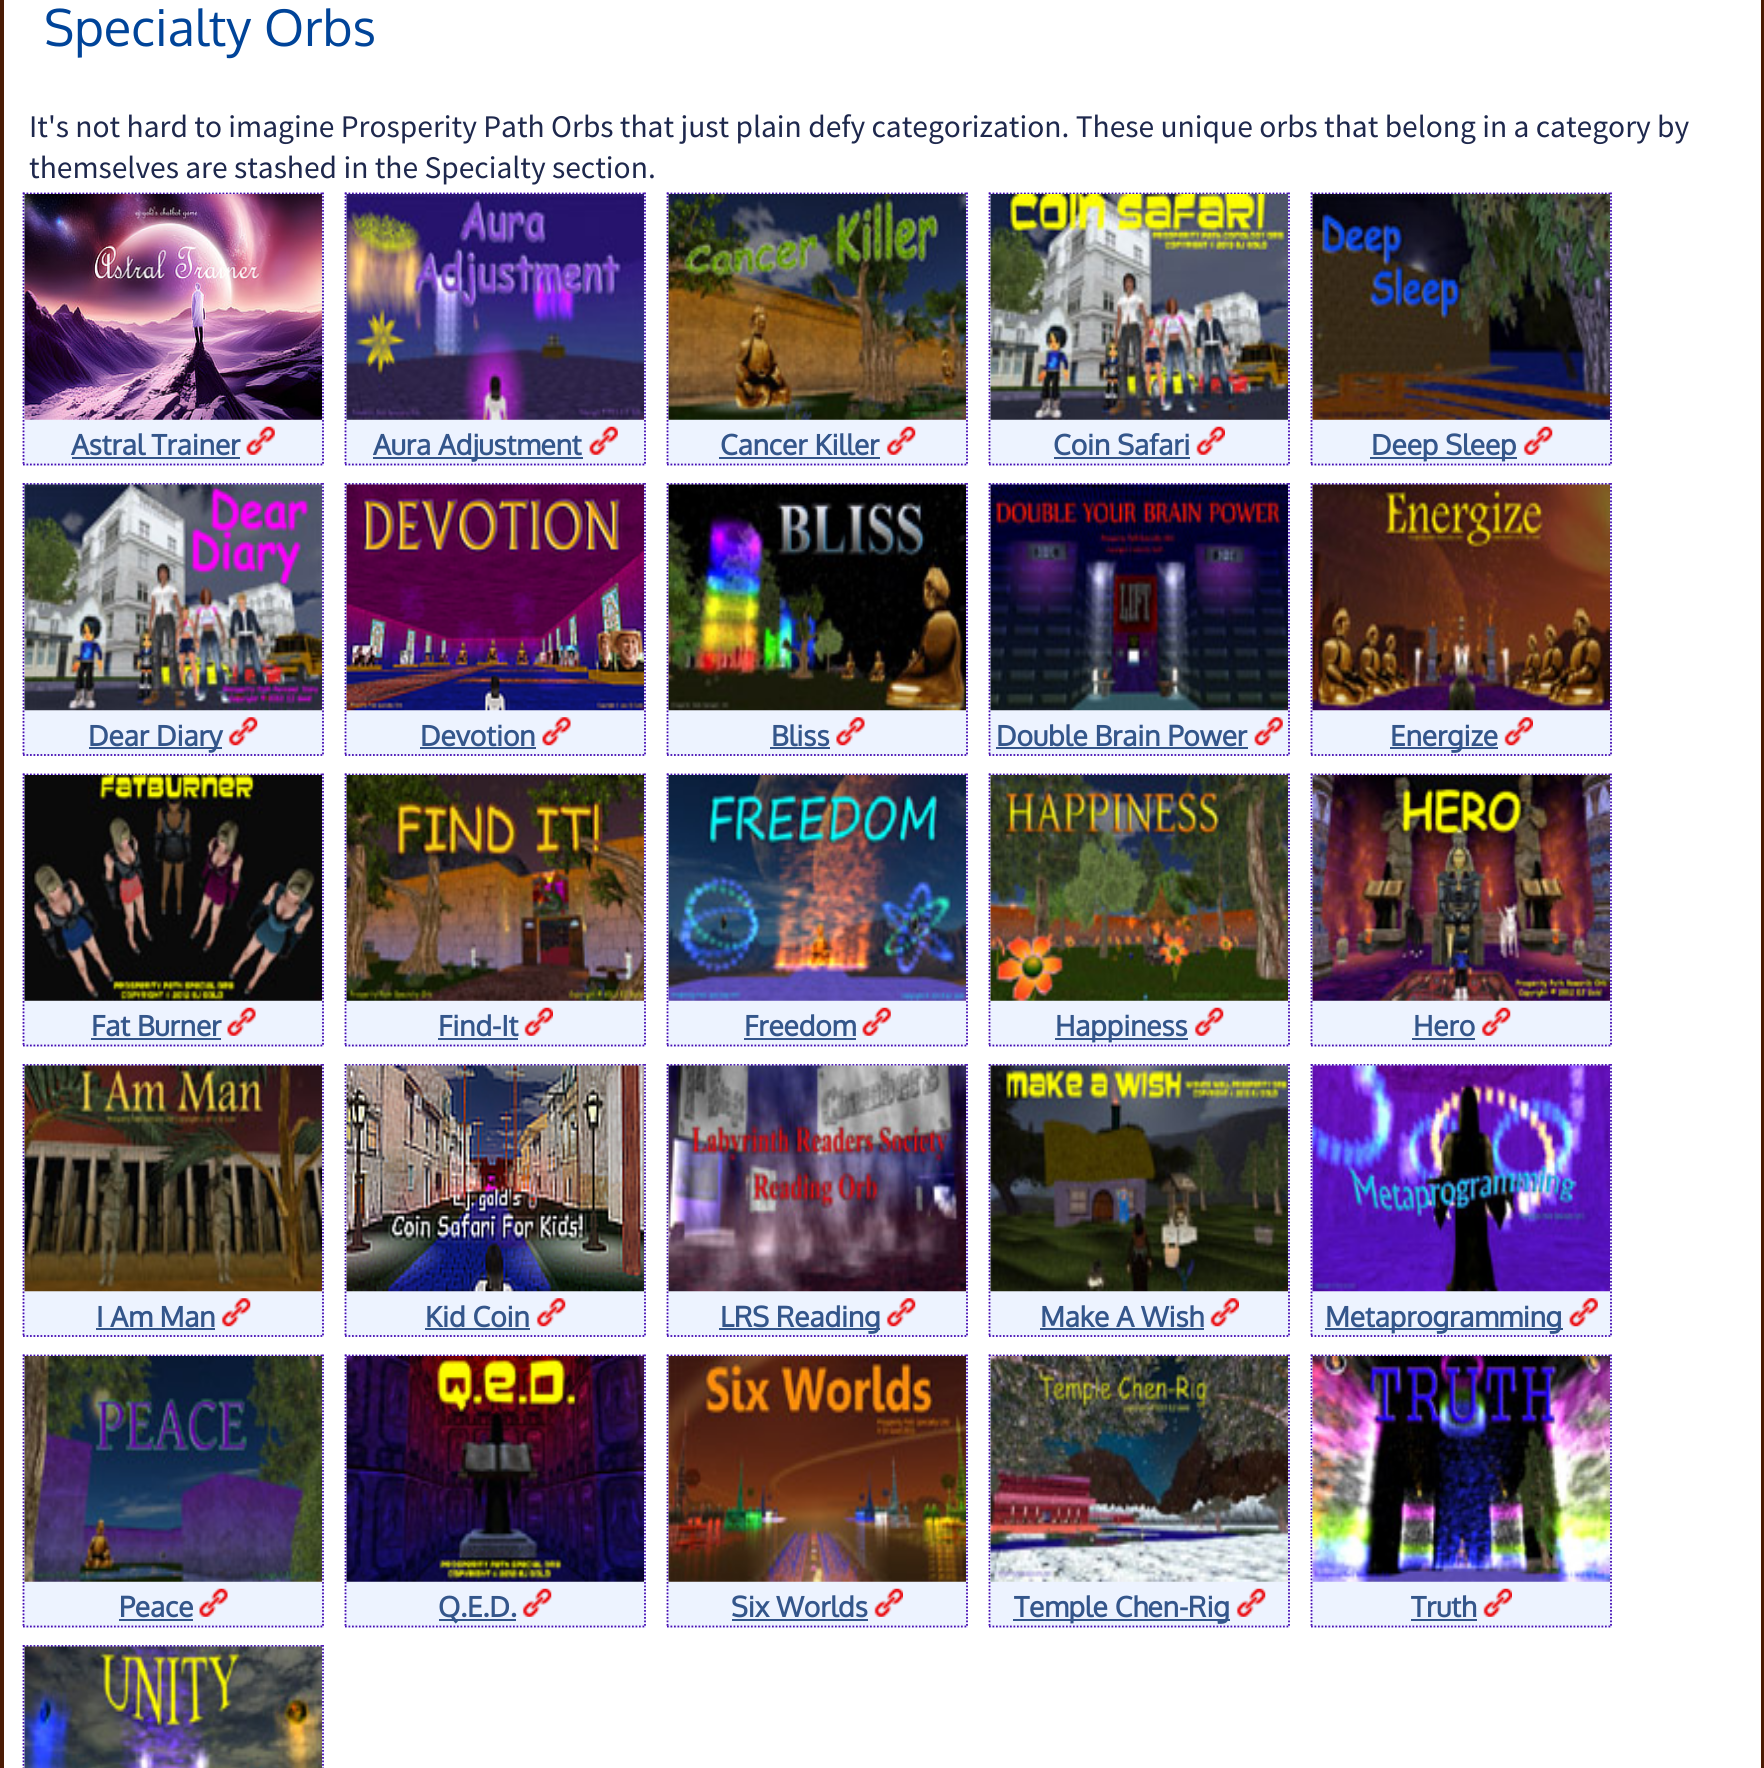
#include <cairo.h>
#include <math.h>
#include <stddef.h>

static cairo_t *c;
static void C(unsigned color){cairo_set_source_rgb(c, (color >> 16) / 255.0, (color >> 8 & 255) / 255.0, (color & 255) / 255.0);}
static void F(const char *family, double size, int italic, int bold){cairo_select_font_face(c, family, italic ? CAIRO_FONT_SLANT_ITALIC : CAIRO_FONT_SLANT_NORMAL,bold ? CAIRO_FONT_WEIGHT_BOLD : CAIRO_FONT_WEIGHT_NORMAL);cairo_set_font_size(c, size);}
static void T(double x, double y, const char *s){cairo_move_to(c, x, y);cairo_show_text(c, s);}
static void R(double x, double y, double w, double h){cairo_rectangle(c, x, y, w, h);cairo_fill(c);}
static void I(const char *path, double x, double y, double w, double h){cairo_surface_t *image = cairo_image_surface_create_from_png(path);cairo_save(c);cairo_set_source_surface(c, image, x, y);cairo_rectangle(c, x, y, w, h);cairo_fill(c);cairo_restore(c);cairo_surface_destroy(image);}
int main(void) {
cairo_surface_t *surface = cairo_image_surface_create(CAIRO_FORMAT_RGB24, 1764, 1768);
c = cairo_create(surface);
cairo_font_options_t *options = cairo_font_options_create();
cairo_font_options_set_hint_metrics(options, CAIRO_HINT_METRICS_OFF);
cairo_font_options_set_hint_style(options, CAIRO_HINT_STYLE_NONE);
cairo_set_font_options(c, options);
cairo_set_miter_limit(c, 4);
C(0xffffff);
cairo_paint(c);
cairo_rectangle(c,2,-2,1760,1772);
C(0x4a1b04);
cairo_set_line_width(c,4);
cairo_stroke(c);
C(0xffffff);
R(1760,0,1,1768);
F("Oxygen",50.5,0,0);
C(0x004499);
T(44,46,"Specialty Orbs");
F("Source Sans Pro",31.5,0,0);
C(0x1e284d);
T(29,137,"It's not hard to imagine Prosperity Path Orbs that just plain defy categorization. These unique orbs that belong in a category by");
T(29,178,"themselves are stashed in the Specialty section.");
C(0xedf3ff);
R(23,193,301,273);
cairo_new_path(c);
cairo_move_to(c,23,193.5);
cairo_line_to(c,324,193.5);
C(0x460ab2);
cairo_set_line_width(c,1.8);
cairo_set_dash(c,(double[]){1.75,1.75},2,0);
cairo_stroke(c);
cairo_new_path(c);
cairo_move_to(c,323,192.5);
cairo_line_to(c,323,465.5);
cairo_stroke(c);
cairo_new_path(c);
cairo_move_to(c,23,464.5);
cairo_line_to(c,324,464.5);
cairo_stroke(c);
cairo_new_path(c);
cairo_move_to(c,23.5,192.5);
cairo_line_to(c,23.5,465.5);
cairo_stroke(c);
I("1.png",24,194,298,226);
F("Oxygen",28,0,1);
C(0x34568b);
T(71,455,"Astral Trainer");
R(72,457,168,2);
I("2.png",246,426,29,29);
C(0xedf3ff);
R(345,193,301,273);
cairo_new_path(c);
cairo_move_to(c,345,193.5);
cairo_line_to(c,646,193.5);
C(0x460ab2);
cairo_stroke(c);
cairo_new_path(c);
cairo_move_to(c,645,192.5);
cairo_line_to(c,645,465.5);
cairo_stroke(c);
cairo_new_path(c);
cairo_move_to(c,345,464.5);
cairo_line_to(c,646,464.5);
cairo_stroke(c);
cairo_new_path(c);
cairo_move_to(c,345.5,192.5);
cairo_line_to(c,345.5,465.5);
cairo_stroke(c);
I("3.png",346,194,298,226);
C(0x34568b);
R(373,457,210,2);
T(373,455,"Aura Adjustment");
I("2.png",589,426,29,29);
C(0xedf3ff);
R(667,193,301,273);
cairo_new_path(c);
cairo_move_to(c,667,193.5);
cairo_line_to(c,968,193.5);
C(0x460ab2);
cairo_stroke(c);
cairo_new_path(c);
cairo_move_to(c,967,192.5);
cairo_line_to(c,967,465.5);
cairo_stroke(c);
cairo_new_path(c);
cairo_move_to(c,667,464.5);
cairo_line_to(c,968,464.5);
cairo_stroke(c);
cairo_new_path(c);
cairo_move_to(c,667.5,192.5);
cairo_line_to(c,667.5,465.5);
cairo_stroke(c);
I("4.png",668,194,298,226);
C(0x34568b);
T(720,455,"Cancer Killer");
R(719,457,161,2);
I("5.png",886,426,30,29);
C(0xedf3ff);
R(989,193,301,273);
cairo_new_path(c);
cairo_move_to(c,989,193.5);
cairo_line_to(c,1290,193.5);
C(0x460ab2);
cairo_stroke(c);
cairo_new_path(c);
cairo_move_to(c,1289,192.5);
cairo_line_to(c,1289,465.5);
cairo_stroke(c);
cairo_new_path(c);
cairo_move_to(c,989,464.5);
cairo_line_to(c,1290,464.5);
cairo_stroke(c);
cairo_new_path(c);
cairo_move_to(c,989.5,192.5);
cairo_line_to(c,989.5,465.5);
cairo_stroke(c);
I("6.png",990,194,298,226);
C(0x34568b);
T(1053,455,"Coin Safari");
R(1054,457,136,2);
I("7.png",1196,426,29,29);
C(0xedf3ff);
R(1311,193,301,273);
cairo_new_path(c);
cairo_move_to(c,1311,193.5);
cairo_line_to(c,1612,193.5);
C(0x460ab2);
cairo_stroke(c);
cairo_new_path(c);
cairo_move_to(c,1611,192.5);
cairo_line_to(c,1611,465.5);
cairo_stroke(c);
cairo_new_path(c);
cairo_move_to(c,1311,464.5);
cairo_line_to(c,1612,464.5);
cairo_stroke(c);
cairo_new_path(c);
cairo_move_to(c,1311.5,192.5);
cairo_line_to(c,1311.5,465.5);
cairo_stroke(c);
I("8.png",1312,194,298,226);
C(0x34568b);
R(1370,457,147,2);
T(1371,455,"Deep Sleep");
I("5.png",1523,426,30,29);
C(0xedf3ff);
R(23,483,301,273);
cairo_new_path(c);
cairo_move_to(c,23,484);
cairo_line_to(c,324,484);
C(0x460ab2);
cairo_stroke(c);
cairo_new_path(c);
cairo_move_to(c,323,483);
cairo_line_to(c,323,756);
cairo_stroke(c);
cairo_new_path(c);
cairo_move_to(c,23,755);
cairo_line_to(c,324,755);
cairo_stroke(c);
cairo_new_path(c);
cairo_move_to(c,23.5,483);
cairo_line_to(c,23.5,756);
cairo_stroke(c);
I("9.png",24,484,298,227);
C(0x34568b);
R(89,747,133,2);
T(88,746,"Dear Diary");
I("10.png",228,717,30,29);
C(0xedf3ff);
R(345,483,301,273);
cairo_new_path(c);
cairo_move_to(c,345,484);
cairo_line_to(c,646,484);
C(0x460ab2);
cairo_stroke(c);
cairo_new_path(c);
cairo_move_to(c,645,483);
cairo_line_to(c,645,756);
cairo_stroke(c);
cairo_new_path(c);
cairo_move_to(c,345,755);
cairo_line_to(c,646,755);
cairo_stroke(c);
cairo_new_path(c);
cairo_move_to(c,345.5,483);
cairo_line_to(c,345.5,756);
cairo_stroke(c);
I("11.png",346,484,298,227);
C(0x34568b);
T(420,746,"Devotion");
R(420,747,116,2);
I("12.png",542,717,29,29);
C(0xedf3ff);
R(667,483,301,273);
cairo_new_path(c);
cairo_move_to(c,667,484);
cairo_line_to(c,968,484);
C(0x460ab2);
cairo_stroke(c);
cairo_new_path(c);
cairo_move_to(c,967,483);
cairo_line_to(c,967,756);
cairo_stroke(c);
cairo_new_path(c);
cairo_move_to(c,667,755);
cairo_line_to(c,968,755);
cairo_stroke(c);
cairo_new_path(c);
cairo_move_to(c,667.5,483);
cairo_line_to(c,667.5,756);
cairo_stroke(c);
I("13.png",668,484,298,227);
C(0x34568b);
T(771,746,"Bliss");
R(770,747,60,2);
I("14.png",836,717,29,29);
C(0xedf3ff);
R(989,483,301,273);
cairo_new_path(c);
cairo_move_to(c,989,484);
cairo_line_to(c,1290,484);
C(0x460ab2);
cairo_stroke(c);
cairo_new_path(c);
cairo_move_to(c,1289,483);
cairo_line_to(c,1289,756);
cairo_stroke(c);
cairo_new_path(c);
cairo_move_to(c,989,755);
cairo_line_to(c,1290,755);
cairo_stroke(c);
cairo_new_path(c);
cairo_move_to(c,989.5,483);
cairo_line_to(c,989.5,756);
cairo_stroke(c);
I("15.png",990,484,298,227);
C(0x34568b);
T(996,746,"Double Brain Power");
R(996,747,252,2);
I("16.png",1254,717,29,29);
C(0xedf3ff);
R(1311,483,301,273);
cairo_new_path(c);
cairo_move_to(c,1311,484);
cairo_line_to(c,1612,484);
C(0x460ab2);
cairo_stroke(c);
cairo_new_path(c);
cairo_move_to(c,1611,483);
cairo_line_to(c,1611,756);
cairo_stroke(c);
cairo_new_path(c);
cairo_move_to(c,1311,755);
cairo_line_to(c,1612,755);
cairo_stroke(c);
cairo_new_path(c);
cairo_move_to(c,1311.5,483);
cairo_line_to(c,1311.5,756);
cairo_stroke(c);
I("17.png",1312,484,298,227);
C(0x34568b);
R(1390,747,108,2);
T(1390,746,"Energize");
I("18.png",1504,717,29,29);
C(0xedf3ff);
R(23,774,301,273);
cairo_new_path(c);
cairo_move_to(c,23,774.5);
cairo_line_to(c,324,774.5);
C(0x460ab2);
cairo_stroke(c);
cairo_new_path(c);
cairo_move_to(c,323,773.5);
cairo_line_to(c,323,1046.5);
cairo_stroke(c);
cairo_new_path(c);
cairo_move_to(c,23,1045.5);
cairo_line_to(c,324,1045.5);
cairo_stroke(c);
cairo_new_path(c);
cairo_move_to(c,23.5,773.5);
cairo_line_to(c,23.5,1046.5);
cairo_stroke(c);
I("19.png",24,775,298,226);
C(0x34568b);
T(91,1036,"Fat Burner");
R(91,1038,130,2);
I("20.png",227,1007,29,29);
C(0xedf3ff);
R(345,774,301,273);
cairo_new_path(c);
cairo_move_to(c,345,774.5);
cairo_line_to(c,646,774.5);
C(0x460ab2);
cairo_stroke(c);
cairo_new_path(c);
cairo_move_to(c,645,773.5);
cairo_line_to(c,645,1046.5);
cairo_stroke(c);
cairo_new_path(c);
cairo_move_to(c,345,1045.5);
cairo_line_to(c,646,1045.5);
cairo_stroke(c);
cairo_new_path(c);
cairo_move_to(c,345.5,773.5);
cairo_line_to(c,345.5,1046.5);
cairo_stroke(c);
I("21.png",346,775,298,226);
C(0x34568b);
T(438,1036,"Find-It");
R(438,1038,80,2);
I("22.png",524,1007,29,29);
C(0xedf3ff);
R(667,774,301,273);
cairo_new_path(c);
cairo_move_to(c,667,774.5);
cairo_line_to(c,968,774.5);
C(0x460ab2);
cairo_stroke(c);
cairo_new_path(c);
cairo_move_to(c,967,773.5);
cairo_line_to(c,967,1046.5);
cairo_stroke(c);
cairo_new_path(c);
cairo_move_to(c,667,1045.5);
cairo_line_to(c,968,1045.5);
cairo_stroke(c);
cairo_new_path(c);
cairo_move_to(c,667.5,773.5);
cairo_line_to(c,667.5,1046.5);
cairo_stroke(c);
I("23.png",668,775,298,226);
C(0x34568b);
T(744,1036,"Freedom");
R(744,1038,112,2);
I("2.png",862,1007,29,29);
C(0xedf3ff);
R(989,774,301,273);
cairo_new_path(c);
cairo_move_to(c,989,774.5);
cairo_line_to(c,1290,774.5);
C(0x460ab2);
cairo_stroke(c);
cairo_new_path(c);
cairo_move_to(c,1289,773.5);
cairo_line_to(c,1289,1046.5);
cairo_stroke(c);
cairo_new_path(c);
cairo_move_to(c,989,1045.5);
cairo_line_to(c,1290,1045.5);
cairo_stroke(c);
cairo_new_path(c);
cairo_move_to(c,989.5,773.5);
cairo_line_to(c,989.5,1046.5);
cairo_stroke(c);
I("24.png",990,775,298,226);
C(0x34568b);
R(1055,1038,133,2);
T(1055,1036,"Happiness");
I("5.png",1194,1007,30,29);
C(0xedf3ff);
R(1311,774,301,273);
cairo_new_path(c);
cairo_move_to(c,1311,774.5);
cairo_line_to(c,1612,774.5);
C(0x460ab2);
cairo_stroke(c);
cairo_new_path(c);
cairo_move_to(c,1611,773.5);
cairo_line_to(c,1611,1046.5);
cairo_stroke(c);
cairo_new_path(c);
cairo_move_to(c,1311,1045.5);
cairo_line_to(c,1612,1045.5);
cairo_stroke(c);
cairo_new_path(c);
cairo_move_to(c,1311.5,773.5);
cairo_line_to(c,1311.5,1046.5);
cairo_stroke(c);
I("25.png",1312,775,298,226);
C(0x34568b);
T(1413,1036,"Hero");
R(1412,1038,63,2);
I("5.png",1481,1007,30,29);
C(0xedf3ff);
R(23,1064,301,273);
cairo_new_path(c);
cairo_move_to(c,23,1065);
cairo_line_to(c,324,1065);
C(0x460ab2);
cairo_stroke(c);
cairo_new_path(c);
cairo_move_to(c,323,1064);
cairo_line_to(c,323,1337);
cairo_stroke(c);
cairo_new_path(c);
cairo_move_to(c,23,1336);
cairo_line_to(c,324,1336);
cairo_stroke(c);
cairo_new_path(c);
cairo_move_to(c,23.5,1064);
cairo_line_to(c,23.5,1337);
cairo_stroke(c);
I("26.png",24,1065,298,227);
C(0x34568b);
T(96,1327,"I Am Man");
R(96,1328,119,2);
I("10.png",221,1298,30,29);
C(0xedf3ff);
R(345,1064,301,273);
cairo_new_path(c);
cairo_move_to(c,345,1065);
cairo_line_to(c,646,1065);
C(0x460ab2);
cairo_stroke(c);
cairo_new_path(c);
cairo_move_to(c,645,1064);
cairo_line_to(c,645,1337);
cairo_stroke(c);
cairo_new_path(c);
cairo_move_to(c,345,1336);
cairo_line_to(c,646,1336);
cairo_stroke(c);
cairo_new_path(c);
cairo_move_to(c,345.5,1064);
cairo_line_to(c,345.5,1337);
cairo_stroke(c);
I("27.png",346,1065,298,227);
C(0x34568b);
T(425,1327,"Kid Coin");
R(425,1328,105,2);
I("10.png",536,1298,30,29);
C(0xedf3ff);
R(667,1064,301,273);
cairo_new_path(c);
cairo_move_to(c,667,1065);
cairo_line_to(c,968,1065);
C(0x460ab2);
cairo_stroke(c);
cairo_new_path(c);
cairo_move_to(c,967,1064);
cairo_line_to(c,967,1337);
cairo_stroke(c);
cairo_new_path(c);
cairo_move_to(c,667,1336);
cairo_line_to(c,968,1336);
cairo_stroke(c);
cairo_new_path(c);
cairo_move_to(c,667.5,1064);
cairo_line_to(c,667.5,1337);
cairo_stroke(c);
I("28.png",668,1065,298,227);
C(0x34568b);
R(719,1328,161,2);
T(720,1327,"LRS Reading");
I("10.png",886,1298,30,29);
C(0xedf3ff);
R(989,1064,301,273);
cairo_new_path(c);
cairo_move_to(c,989,1065);
cairo_line_to(c,1290,1065);
C(0x460ab2);
cairo_stroke(c);
cairo_new_path(c);
cairo_move_to(c,1289,1064);
cairo_line_to(c,1289,1337);
cairo_stroke(c);
cairo_new_path(c);
cairo_move_to(c,989,1336);
cairo_line_to(c,1290,1336);
cairo_stroke(c);
cairo_new_path(c);
cairo_move_to(c,989.5,1064);
cairo_line_to(c,989.5,1337);
cairo_stroke(c);
I("29.png",990,1065,298,227);
C(0x34568b);
T(1040,1327,"Make A Wish");
R(1040,1328,164,2);
I("30.png",1210,1298,29,29);
C(0xedf3ff);
R(1311,1064,301,273);
cairo_new_path(c);
cairo_move_to(c,1311,1065);
cairo_line_to(c,1612,1065);
C(0x460ab2);
cairo_stroke(c);
cairo_new_path(c);
cairo_move_to(c,1611,1064);
cairo_line_to(c,1611,1337);
cairo_stroke(c);
cairo_new_path(c);
cairo_move_to(c,1311,1336);
cairo_line_to(c,1612,1336);
cairo_stroke(c);
cairo_new_path(c);
cairo_move_to(c,1311.5,1064);
cairo_line_to(c,1311.5,1337);
cairo_stroke(c);
I("31.png",1312,1065,298,227);
C(0x34568b);
R(1325,1328,238,2);
T(1325,1327,"Metaprogramming");
I("16.png",1569,1298,29,29);
C(0xedf3ff);
R(23,1355,301,273);
cairo_new_path(c);
cairo_move_to(c,23,1355.5);
cairo_line_to(c,324,1355.5);
C(0x460ab2);
cairo_stroke(c);
cairo_new_path(c);
cairo_move_to(c,323,1354.5);
cairo_line_to(c,323,1627.5);
cairo_stroke(c);
cairo_new_path(c);
cairo_move_to(c,23,1626.5);
cairo_line_to(c,324,1626.5);
cairo_stroke(c);
cairo_new_path(c);
cairo_move_to(c,23.5,1354.5);
cairo_line_to(c,23.5,1627.5);
cairo_stroke(c);
I("32.png",24,1356,298,226);
C(0x34568b);
T(119,1617,"Peace");
R(119,1619,74,2);
I("20.png",199,1588,29,29);
C(0xedf3ff);
R(345,1355,301,273);
cairo_new_path(c);
cairo_move_to(c,345,1355.5);
cairo_line_to(c,646,1355.5);
C(0x460ab2);
cairo_stroke(c);
cairo_new_path(c);
cairo_move_to(c,645,1354.5);
cairo_line_to(c,645,1627.5);
cairo_stroke(c);
cairo_new_path(c);
cairo_move_to(c,345,1626.5);
cairo_line_to(c,646,1626.5);
cairo_stroke(c);
cairo_new_path(c);
cairo_move_to(c,345.5,1354.5);
cairo_line_to(c,345.5,1627.5);
cairo_stroke(c);
I("33.png",346,1356,298,226);
C(0x34568b);
R(439,1619,77,2);
T(438,1617,"Q.E.D.");
I("5.png",522,1588,30,29);
C(0xedf3ff);
R(667,1355,301,273);
cairo_new_path(c);
cairo_move_to(c,667,1355.5);
cairo_line_to(c,968,1355.5);
C(0x460ab2);
cairo_stroke(c);
cairo_new_path(c);
cairo_move_to(c,967,1354.5);
cairo_line_to(c,967,1627.5);
cairo_stroke(c);
cairo_new_path(c);
cairo_move_to(c,667,1626.5);
cairo_line_to(c,968,1626.5);
cairo_stroke(c);
cairo_new_path(c);
cairo_move_to(c,667.5,1354.5);
cairo_line_to(c,667.5,1627.5);
cairo_stroke(c);
I("34.png",668,1356,298,226);
C(0x34568b);
T(731,1617,"Six Worlds");
R(732,1619,136,2);
I("22.png",874,1588,29,29);
C(0xedf3ff);
R(989,1355,301,273);
cairo_new_path(c);
cairo_move_to(c,989,1355.5);
cairo_line_to(c,1290,1355.5);
C(0x460ab2);
cairo_stroke(c);
cairo_new_path(c);
cairo_move_to(c,1289,1354.5);
cairo_line_to(c,1289,1627.5);
cairo_stroke(c);
cairo_new_path(c);
cairo_move_to(c,989,1626.5);
cairo_line_to(c,1290,1626.5);
cairo_stroke(c);
cairo_new_path(c);
cairo_move_to(c,989.5,1354.5);
cairo_line_to(c,989.5,1627.5);
cairo_stroke(c);
I("35.png",990,1356,298,226);
C(0x34568b);
R(1013,1619,217,2);
T(1014,1617,"Temple Chen-Rig");
I("5.png",1236,1588,30,29);
C(0xedf3ff);
R(1311,1355,301,273);
cairo_new_path(c);
cairo_move_to(c,1311,1355.5);
cairo_line_to(c,1612,1355.5);
C(0x460ab2);
cairo_stroke(c);
cairo_new_path(c);
cairo_move_to(c,1611,1354.5);
cairo_line_to(c,1611,1627.5);
cairo_stroke(c);
cairo_new_path(c);
cairo_move_to(c,1311,1626.5);
cairo_line_to(c,1612,1626.5);
cairo_stroke(c);
cairo_new_path(c);
cairo_move_to(c,1311.5,1354.5);
cairo_line_to(c,1311.5,1627.5);
cairo_stroke(c);
I("36.png",1312,1356,298,226);
C(0x34568b);
T(1411,1617,"Truth");
R(1411,1619,66,2);
I("7.png",1483,1588,29,29);
C(0xedf3ff);
R(23,1645,301,123);
cairo_new_path(c);
cairo_move_to(c,23,1646);
cairo_line_to(c,324,1646);
C(0x460ab2);
cairo_stroke(c);
cairo_new_path(c);
cairo_move_to(c,323,1645);
cairo_line_to(c,323,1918);
cairo_stroke(c);
cairo_new_path(c);
cairo_move_to(c,23.5,1645);
cairo_line_to(c,23.5,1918);
cairo_stroke(c);
I("37.png",24,1646,298,122);
cairo_surface_write_to_png(surface, "o.png");
cairo_font_options_destroy(options);
cairo_destroy(c);
cairo_surface_destroy(surface);
return 0;
}
